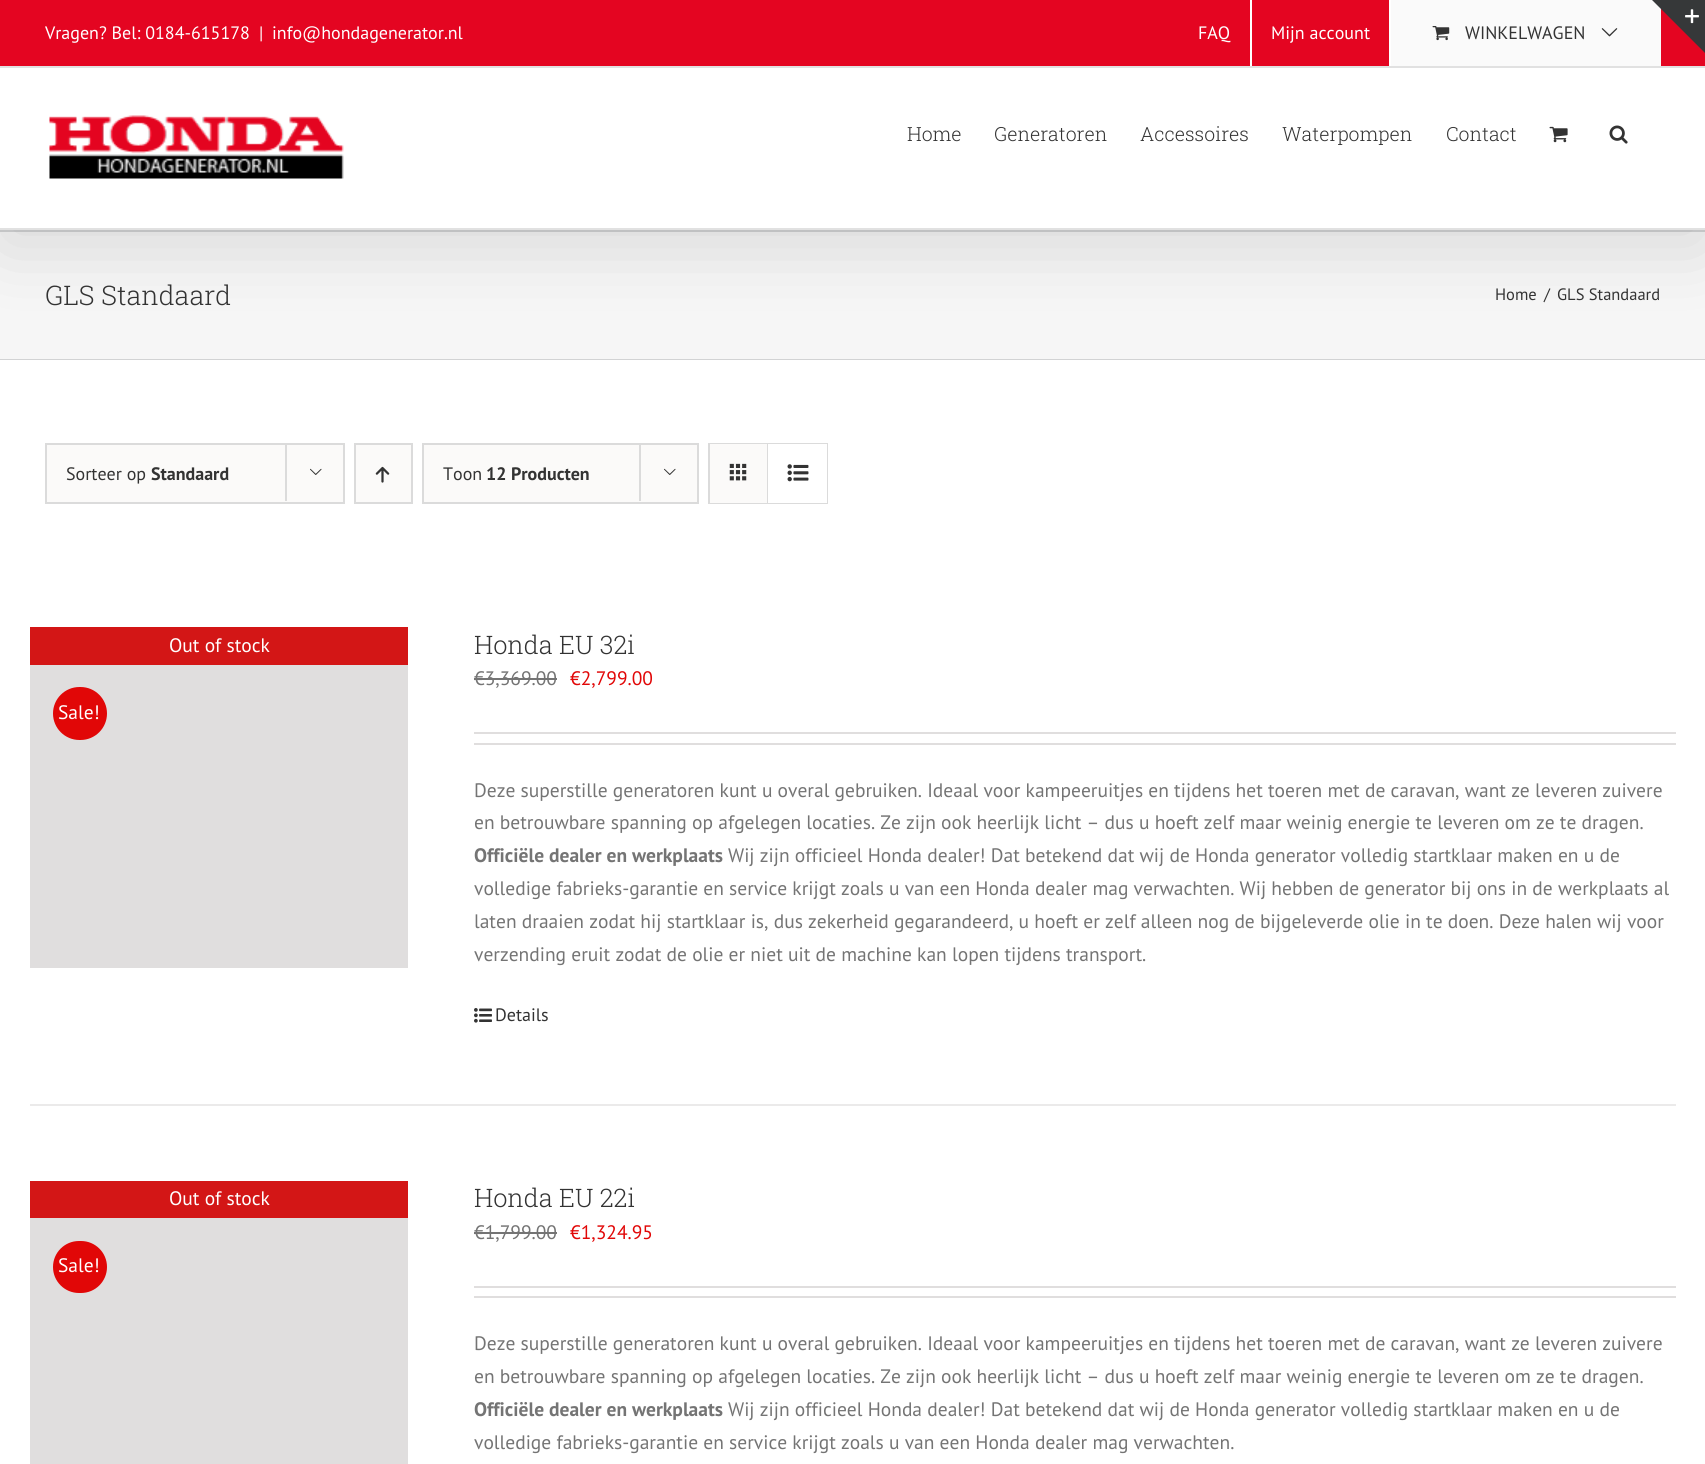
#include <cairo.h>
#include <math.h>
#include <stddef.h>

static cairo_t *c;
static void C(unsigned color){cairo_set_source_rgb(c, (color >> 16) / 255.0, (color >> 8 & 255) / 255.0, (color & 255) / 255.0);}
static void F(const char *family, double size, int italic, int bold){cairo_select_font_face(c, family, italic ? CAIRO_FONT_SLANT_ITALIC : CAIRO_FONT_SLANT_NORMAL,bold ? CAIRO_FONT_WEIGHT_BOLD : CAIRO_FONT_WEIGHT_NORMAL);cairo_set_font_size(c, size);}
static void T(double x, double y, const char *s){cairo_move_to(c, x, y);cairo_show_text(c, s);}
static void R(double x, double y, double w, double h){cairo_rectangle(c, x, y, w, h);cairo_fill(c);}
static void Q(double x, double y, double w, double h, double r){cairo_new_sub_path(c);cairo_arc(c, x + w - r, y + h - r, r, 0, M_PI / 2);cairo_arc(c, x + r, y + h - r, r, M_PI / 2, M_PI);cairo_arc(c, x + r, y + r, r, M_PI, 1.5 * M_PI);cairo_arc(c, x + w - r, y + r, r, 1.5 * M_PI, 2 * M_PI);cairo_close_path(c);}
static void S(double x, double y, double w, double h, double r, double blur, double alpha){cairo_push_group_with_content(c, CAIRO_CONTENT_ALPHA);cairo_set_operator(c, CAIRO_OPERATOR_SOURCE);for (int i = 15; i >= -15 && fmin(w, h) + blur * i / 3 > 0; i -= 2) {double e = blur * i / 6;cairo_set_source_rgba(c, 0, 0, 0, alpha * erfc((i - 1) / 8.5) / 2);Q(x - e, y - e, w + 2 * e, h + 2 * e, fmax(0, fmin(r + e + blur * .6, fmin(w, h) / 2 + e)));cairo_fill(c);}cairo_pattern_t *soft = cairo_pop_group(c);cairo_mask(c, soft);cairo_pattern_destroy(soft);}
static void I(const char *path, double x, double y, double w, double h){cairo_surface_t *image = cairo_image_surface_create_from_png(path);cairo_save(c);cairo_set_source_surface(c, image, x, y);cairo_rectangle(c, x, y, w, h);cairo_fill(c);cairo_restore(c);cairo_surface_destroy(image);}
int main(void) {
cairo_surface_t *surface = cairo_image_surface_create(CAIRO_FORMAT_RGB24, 1705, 1464);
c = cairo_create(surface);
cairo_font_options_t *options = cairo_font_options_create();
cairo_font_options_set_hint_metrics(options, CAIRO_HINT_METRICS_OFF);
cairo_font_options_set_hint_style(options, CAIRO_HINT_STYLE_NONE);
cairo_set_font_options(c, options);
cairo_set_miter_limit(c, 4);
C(0xf6f6f6);
cairo_paint(c);
C(0xd2d3d4);
R(0,230,1705,2);
C(0x000000);
S(3,18,1700,224,0,37.5,.14);
C(0xe40521);
R(0,0,1705,66);
C(0xe1e1e1);
R(0,66,1705,2);
F("PT Sans",18,0,0);
C(0xffffff);
T(45,39,"Vragen? Bel: 0184-615178");
T(259,39,"|");
T(272,39,"info@hondagenerator.nl");
T(1198,39,"FAQ");
R(1250,0,2,66);
T(1271,39,"Mijn account");
R(1389,0,2,66);
C(0xfafafa);
R(1391,0,270,66);
I("1.png",1432,26,18,15);
C(0x333333);
T(1465,39,"WINKELWAGEN");
I("2.png",1601,28,17,9);
C(0xffffff);
R(0,68,1705,160);
C(0xe1e1e1);
R(0,228,1705,2);
I("3.png",49,115,295,64);
F("Roboto Slab Light",19.5,0,0);
C(0x333333);
T(907,141,"Home");
T(994,141,"Generatoren");
T(1140,141,"Accessoires");
T(1282,141,"Waterpompen");
T(1446,141,"Contact");
I("4.png",1549,126,19,17);
I("5.png",1609,125,19,19);
C(0x363839);
cairo_new_path(c);
cairo_move_to(c,1652,0);
cairo_line_to(c,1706,0);
cairo_line_to(c,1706,54);
cairo_close_path(c);
cairo_fill(c);
I("6.png",1685,9,14,15);
C(0xd2d3d4);
R(0,359,1705,1);
F("Roboto Slab Light",27,0,0);
C(0x333333);
T(45,305,"GLS Standaard");
F("PT Sans",16.5,0,0);
T(1495,300,"Home");
T(1544,300,"/");
T(1557,300,"GLS Standaard");
C(0xffffff);
R(0,360,1705,1104);
C(0xfbfaf9);
cairo_rectangle(c,46,444,298,59);
cairo_fill_preserve(c);
C(0xdbdbdb);
cairo_stroke(c);
F("PT Sans",18,0,0);
C(0x333333);
T(66,480,"Sorteer op");
F("PT Sans",18,0,1);
T(151,480,"Standaard");
C(0xdbdbdb);
R(285,443,2,58);
I("7.png",310,468,12,7);
C(0xfbfaf9);
cairo_rectangle(c,355,444,57,59);
cairo_fill_preserve(c);
C(0xdbdbdb);
cairo_stroke(c);
I("8.png",375,466,15,17);
C(0xfbfaf9);
cairo_rectangle(c,423,444,275,59);
cairo_fill_preserve(c);
C(0xdbdbdb);
cairo_stroke(c);
F("PT Sans",18,0,0);
C(0x333333);
T(443,480,"Toon");
F("PT Sans",18,0,1);
T(486,480,"12 Producten");
C(0xdbdbdb);
R(639,443,2,58);
I("7.png",664,468,12,7);
cairo_rectangle(c,709,444,118,59);
cairo_stroke(c);
C(0xfbfaf9);
R(710,444,57,59);
C(0xdbdbdb);
R(767,444,1,59);
I("9.png",729,463,18,18);
C(0xffffff);
R(768,444,59,59);
I("10.png",787,464,22,18);
C(0xebeaea);
R(30,1104,1646,2);
C(0xd31616);
R(30,627,378,38);
F("PT Sans",19.5,0,0);
C(0xffffff);
T(169,652,"Out of stock");
C(0xe0dede);
R(30,665,378,303);
C(0xe10707);
Q(53,687,54,53,26.5);
cairo_fill(c);
C(0xffffff);
T(58,719,"Sale!");
F("Roboto Slab Light",25.5,0,0);
C(0x333333);
T(474,654,"Honda EU 32i");
F("PT Sans",19.5,0,0);
C(0x747474);
T(474,685,"€3,369.00");
R(474,678,83,2);
C(0xe10707);
T(570,685,"€2,799.00");
C(0xe0dede);
R(474,732,1202,2);
R(474,743,1202,2);
C(0x747474);
T(474,797,"Deze superstille generatoren kunt u overal gebruiken. Ideaal voor kampeeruitjes en tijdens het toeren met de caravan, want ze leveren zuivere");
T(474,829,"en betrouwbare spanning op afgelegen locaties. Ze zijn ook heerlijk licht – dus u hoeft zelf maar weinig energie te leveren om ze te dragen.");
F("PT Sans",19.5,0,1);
T(474,862,"Officiële dealer en werkplaats");
F("PT Sans",19.5,0,0);
T(728,862,"Wij zijn officieel Honda dealer! Dat betekend dat wij de Honda generator volledig startklaar maken en u de");
T(474,895,"volledige fabrieks-garantie en service krijgt zoals u van een Honda dealer mag verwachten. Wij hebben de generator bij ons in de werkplaats al");
T(474,928,"laten draaien zodat hij startklaar is, dus zekerheid gegarandeerd, u hoeft er zelf alleen nog de bijgeleverde olie in te doen. Deze halen wij voor");
T(474,961,"verzending eruit zodat de olie er niet uit de machine kan lopen tijdens transport.");
I("11.png",474,1008,18,15);
F("PT Sans",18,0,0);
C(0x333333);
T(495,1021,"Details");
C(0xd31616);
R(30,1181,378,37);
F("PT Sans",19.5,0,0);
C(0xffffff);
T(169,1205,"Out of stock");
C(0xe0dede);
R(30,1218,378,246);
C(0xe10707);
Q(53,1241,54,52,26);
cairo_fill(c);
C(0xffffff);
T(58,1272,"Sale!");
F("Roboto Slab Light",25.5,0,0);
C(0x333333);
T(474,1207,"Honda EU 22i");
F("PT Sans",19.5,0,0);
C(0x747474);
T(474,1239,"€1,799.00");
R(474,1232,83,2);
C(0xe10707);
T(570,1239,"€1,324.95");
C(0xe0dede);
R(474,1286,1202,2);
R(474,1296,1202,2);
C(0x747474);
T(474,1350,"Deze superstille generatoren kunt u overal gebruiken. Ideaal voor kampeeruitjes en tijdens het toeren met de caravan, want ze leveren zuivere");
T(474,1383,"en betrouwbare spanning op afgelegen locaties. Ze zijn ook heerlijk licht – dus u hoeft zelf maar weinig energie te leveren om ze te dragen.");
F("PT Sans",19.5,0,1);
T(474,1416,"Officiële dealer en werkplaats");
F("PT Sans",19.5,0,0);
T(728,1416,"Wij zijn officieel Honda dealer! Dat betekend dat wij de Honda generator volledig startklaar maken en u de");
T(474,1449,"volledige fabrieks-garantie en service krijgt zoals u van een Honda dealer mag verwachten.");
cairo_surface_write_to_png(surface, "o.png");
cairo_font_options_destroy(options);
cairo_destroy(c);
cairo_surface_destroy(surface);
return 0;
}
